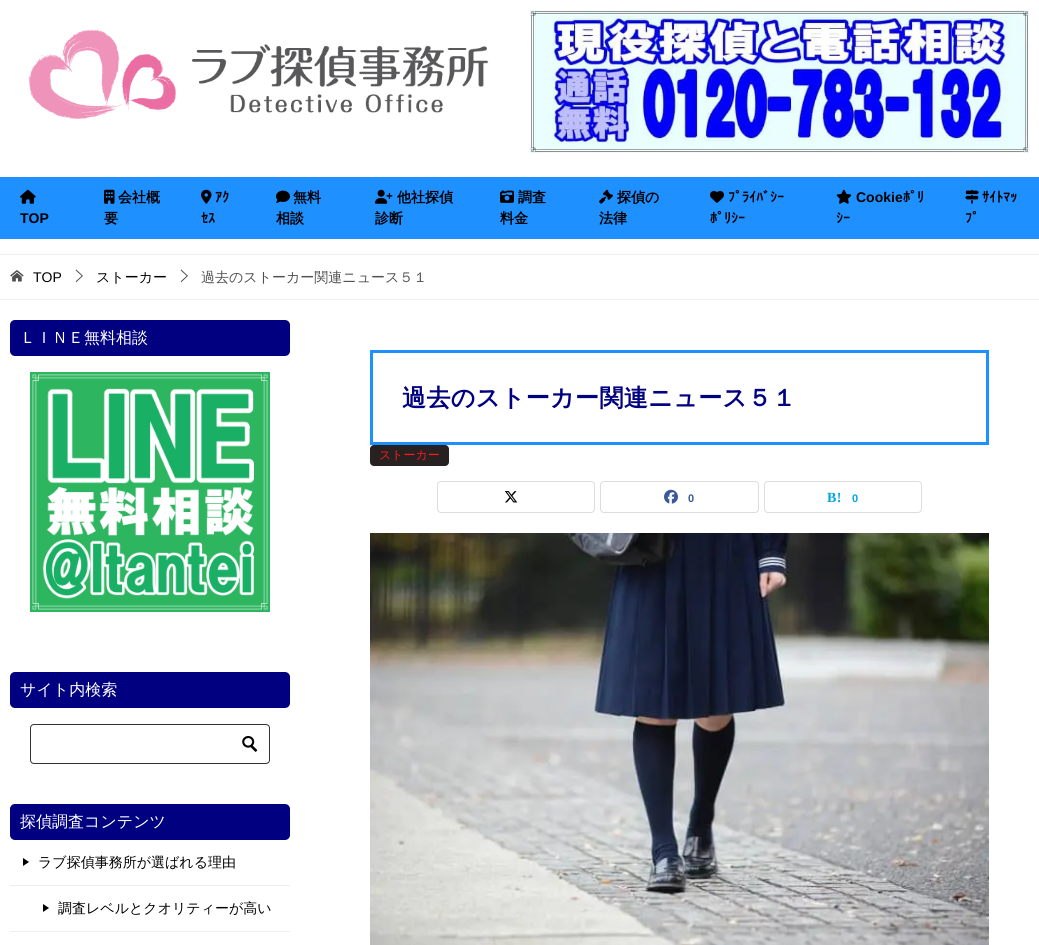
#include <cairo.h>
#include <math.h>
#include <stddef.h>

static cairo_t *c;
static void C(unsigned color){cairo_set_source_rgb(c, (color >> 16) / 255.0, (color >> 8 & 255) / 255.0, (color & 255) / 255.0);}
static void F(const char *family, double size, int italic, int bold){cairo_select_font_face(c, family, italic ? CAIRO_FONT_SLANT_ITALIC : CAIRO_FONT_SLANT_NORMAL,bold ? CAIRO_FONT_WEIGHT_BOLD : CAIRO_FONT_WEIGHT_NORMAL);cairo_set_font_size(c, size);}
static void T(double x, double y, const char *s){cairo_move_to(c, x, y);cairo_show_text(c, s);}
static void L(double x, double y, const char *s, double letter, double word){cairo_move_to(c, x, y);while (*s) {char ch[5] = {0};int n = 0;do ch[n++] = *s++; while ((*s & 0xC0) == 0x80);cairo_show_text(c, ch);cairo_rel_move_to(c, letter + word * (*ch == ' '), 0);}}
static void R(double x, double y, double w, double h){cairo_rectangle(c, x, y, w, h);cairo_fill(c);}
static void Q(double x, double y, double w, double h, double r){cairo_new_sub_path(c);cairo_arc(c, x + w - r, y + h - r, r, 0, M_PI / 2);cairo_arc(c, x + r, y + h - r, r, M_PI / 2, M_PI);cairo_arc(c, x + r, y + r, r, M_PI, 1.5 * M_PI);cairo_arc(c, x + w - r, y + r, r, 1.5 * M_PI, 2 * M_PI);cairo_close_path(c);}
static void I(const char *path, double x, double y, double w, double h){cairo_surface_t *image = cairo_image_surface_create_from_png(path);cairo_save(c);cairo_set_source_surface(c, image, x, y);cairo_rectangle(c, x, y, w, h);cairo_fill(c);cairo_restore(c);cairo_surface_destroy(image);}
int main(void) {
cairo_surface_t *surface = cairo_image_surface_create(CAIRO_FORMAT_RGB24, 1039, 945);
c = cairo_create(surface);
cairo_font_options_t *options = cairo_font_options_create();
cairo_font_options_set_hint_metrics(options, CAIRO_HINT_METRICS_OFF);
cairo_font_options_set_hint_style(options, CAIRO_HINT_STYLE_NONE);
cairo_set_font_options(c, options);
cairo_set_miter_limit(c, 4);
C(0xffffff);
cairo_paint(c);
I("1.png",28,29,461,91);
I("2.png",530,10,499,143);
C(0x1e90ff);
R(0,177,1039,62);
I("3.png",20,189,16,15);
F("Liberation Sans",14,0,1);
C(0x000000);
T(20,223,"TOP");
I("4.png",104,189,11,15);
F("WenQuanYi Zen Hei",14,0,1);
T(118,202,"会社概");
T(104,223,"要");
I("5.png",201,189,11,15);
F("IPAPGothic",14,0,1);
T(215,202,"ｱｸ");
T(201,223,"ｾｽ");
I("6.png",276,190,14,13);
F("WenQuanYi Zen Hei",14,0,1);
T(293,202,"無料");
T(276,223,"相談");
I("7.png",375,189,18,15);
T(397,202,"他社探偵");
T(375,223,"診断");
I("8.png",500,190,14,13);
T(518,202,"調査");
T(500,223,"料金");
I("9.png",599,189,14,15);
T(617,202,"探偵の");
T(599,223,"法律");
I("10.png",710,190,14,13);
F("IPAPGothic",14,0,1);
T(728,202,"ﾌﾟﾗｲﾊﾞｼｰ");
T(710,223,"ﾎﾟﾘｼｰ");
I("11.png",836,189,16,15);
F("Liberation Sans",14,0,1);
T(856,202,"Cookie");
F("IPAPGothic",14,0,1);
T(903,202,"ﾎﾟﾘ");
T(836,223,"ｼｰ");
I("12.png",965,189,14,15);
T(982,202,"ｻｲﾄﾏｯ");
T(965,223,"ﾌﾟ");
C(0xeeeeee);
R(0,254,1039,1);
R(0,299,1039,1);
I("13.png",10,270,14,12);
F("Liberation Sans",14,0,0);
C(0x000000);
T(33,282,"TOP");
I("14.png",75,269,8,14);
F("WenQuanYi Zen Hei Medium",14,0,0);
T(96,282,"ストーカー");
I("14.png",180,269,8,14);
C(0x505050);
T(201,282,"過去のストーカー関連ニュース５１");
C(0x000080);
Q(10,320,280,36,5);
cairo_fill(c);
F("WenQuanYi Zen Hei Medium",16,0,0);
C(0xffffff);
T(20,343,"ＬＩＮＥ無料相談");
I("15.png",30,372,240,240);
C(0x000080);
Q(10,672,280,36,5);
cairo_fill(c);
C(0xffffff);
T(20,695,"サイト内検索");
Q(30.5,724.5,239,39,3.5);
C(0x333333);
cairo_set_line_width(c,1);
cairo_stroke(c);
I("16.png",242,736,16,16);
C(0x000080);
Q(10,804,280,36,5);
cairo_fill(c);
C(0xffffff);
T(20,827,"探偵調査コンテンツ");
C(0x000000);
cairo_new_path(c);
cairo_move_to(c,23,866);
cairo_line_to(c,23,858);
cairo_line_to(c,29,862);
cairo_close_path(c);
cairo_fill(c);
F("WenQuanYi Zen Hei Medium",14,0,0);
T(38,867,"ラブ探偵事務所が選ばれる理由");
C(0xeeeeee);
R(10,885,280,1);
R(10,931,280,1);
C(0x000000);
cairo_new_path(c);
cairo_move_to(c,43,912);
cairo_line_to(c,43,904);
cairo_line_to(c,49,908);
cairo_close_path(c);
cairo_fill(c);
T(58,913,"調査レベルとクオリティーが高い");
cairo_rectangle(c,371.5,351.5,616,92);
C(0x1e90ff);
cairo_set_line_width(c,3);
cairo_stroke(c);
F("WenQuanYi Zen Hei",24,0,1);
C(0x000080);
L(402,406,"過去のストーカー関連ニュース５１",.4,0);
C(0x272121);
Q(370,445,79,21,4);
cairo_fill(c);
F("WenQuanYi Zen Hei Medium",12,0,0);
C(0xfd191e);
T(379,459,"ストーカー");
Q(437.5,481.5,157,31,3.5);
C(0xdddddd);
cairo_set_line_width(c,1);
cairo_stroke(c);
I("17.png",504,491,14,12);
Q(600.5,481.5,158,31,3.5);
cairo_stroke(c);
I("18.png",664,489,14,15);
F("Liberation Sans",11,0,1);
C(0x3b5998);
L(688,502,"0",.4,0);
Q(764.5,481.5,157,31,3.5);
C(0xdddddd);
cairo_stroke(c);
F("Liberation Serif",14,0,1);
C(0x00a4de);
L(827,502,"B!",.4,0);
F("Liberation Sans",11,0,1);
L(852,502,"0",.4,0);
I("19.png",370,533,619,412);
cairo_surface_write_to_png(surface, "o.png");
cairo_font_options_destroy(options);
cairo_destroy(c);
cairo_surface_destroy(surface);
return 0;
}
